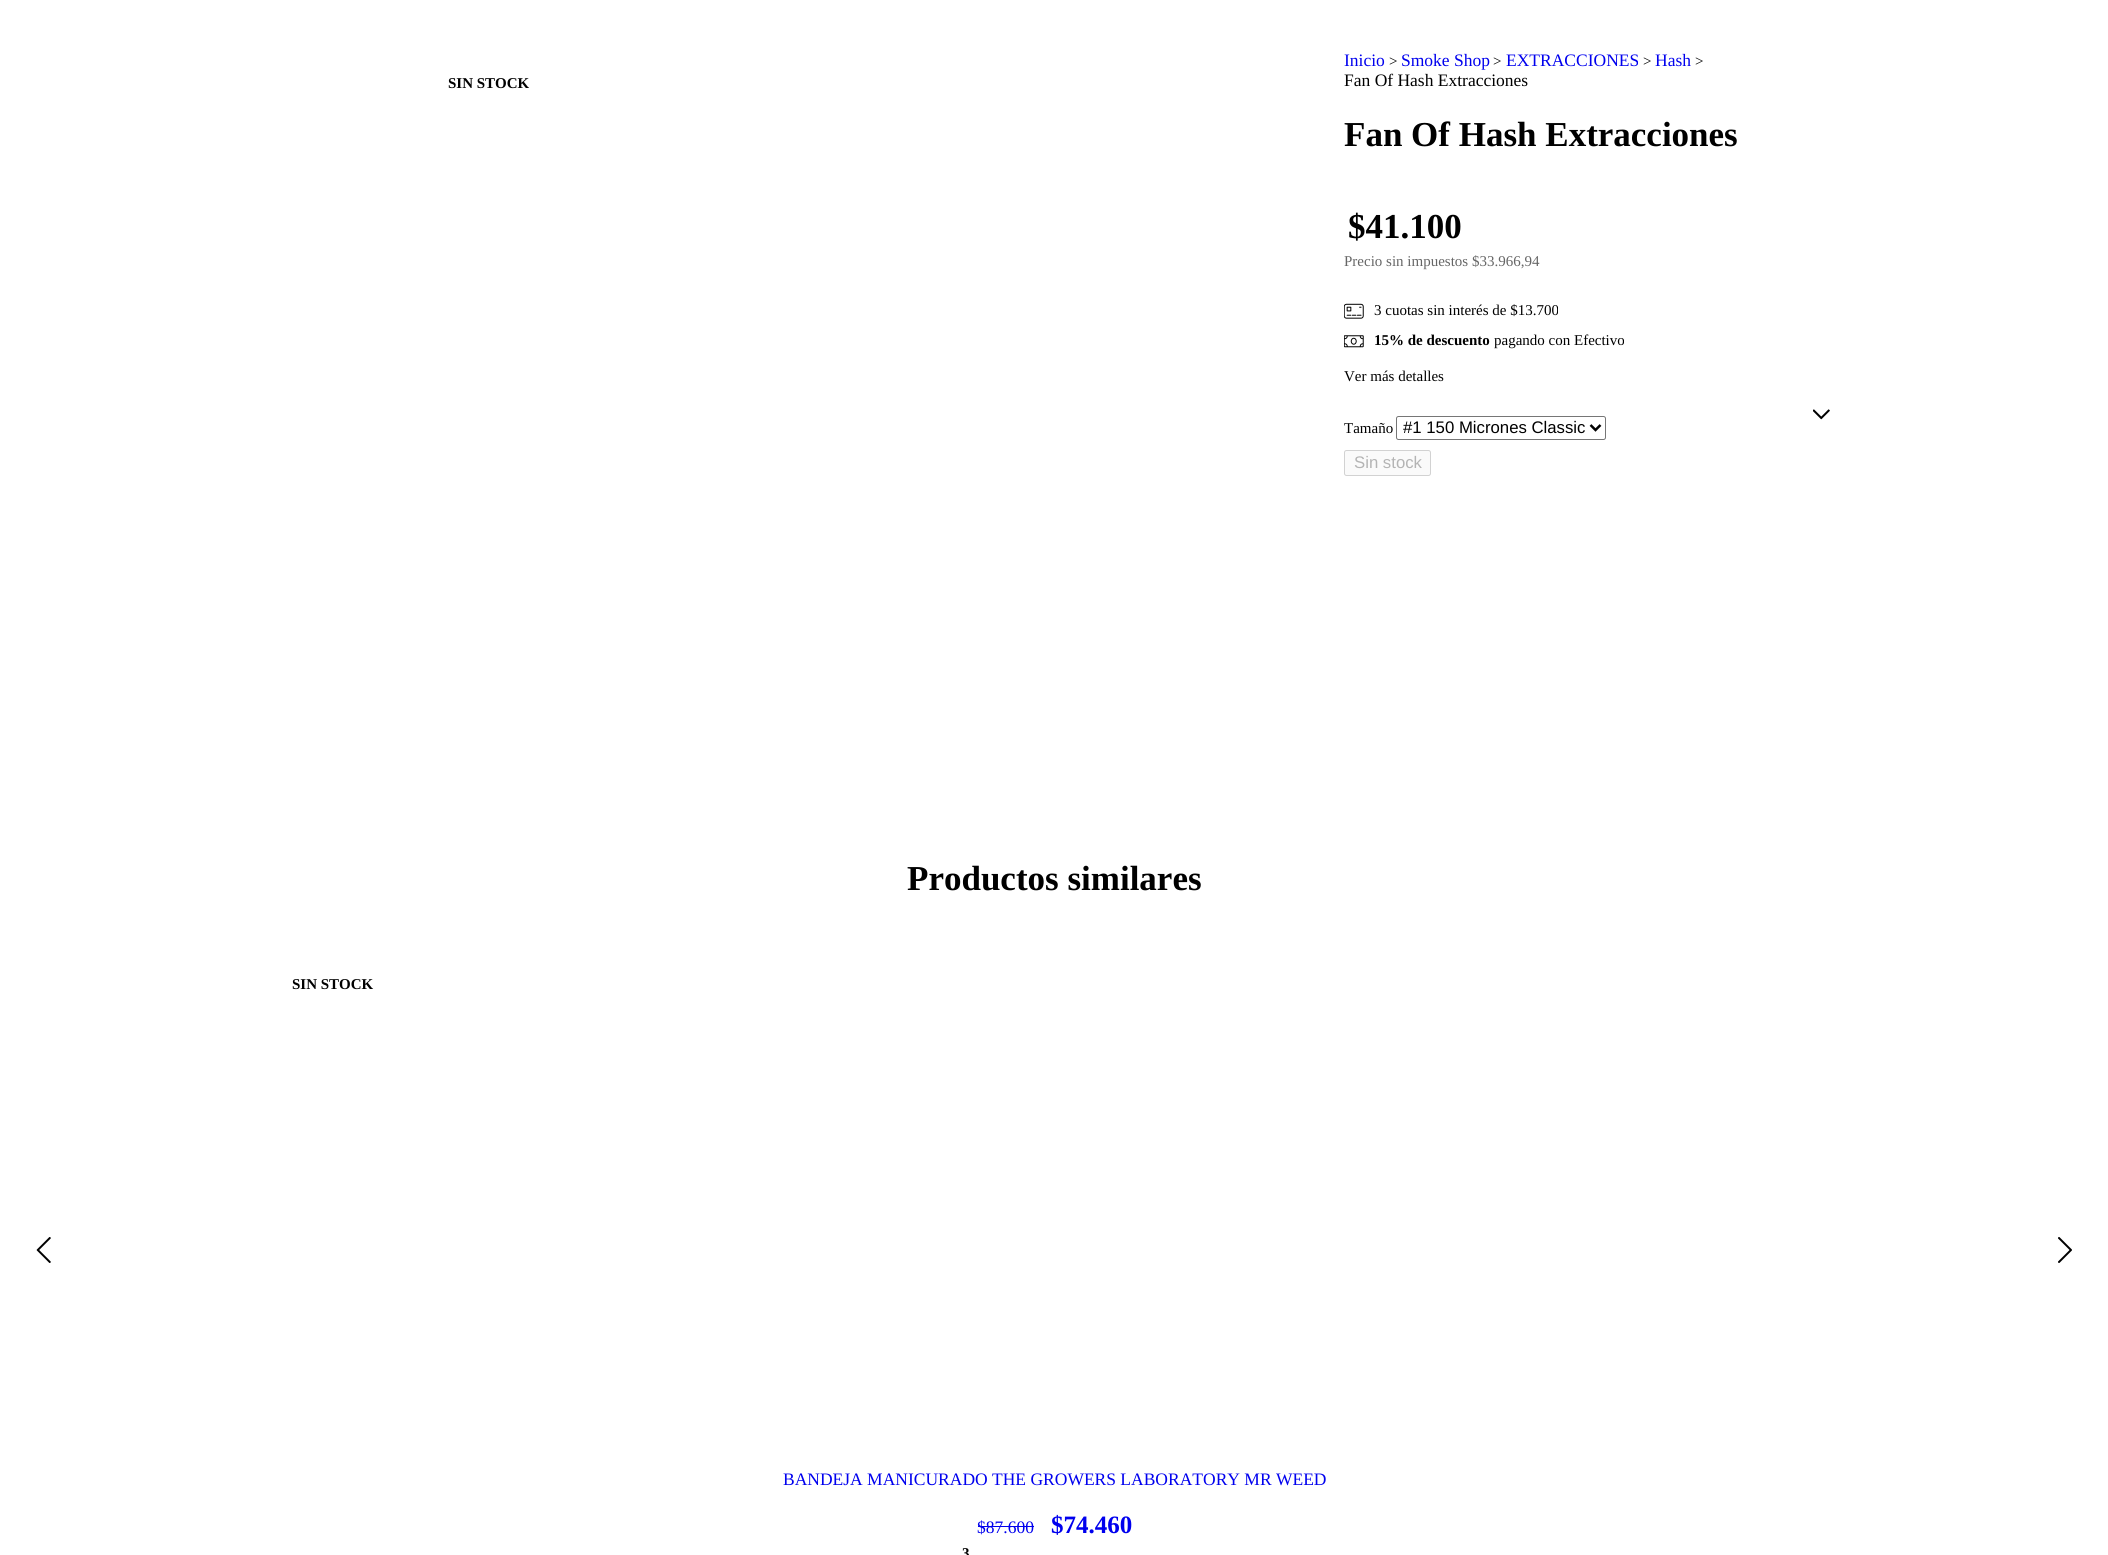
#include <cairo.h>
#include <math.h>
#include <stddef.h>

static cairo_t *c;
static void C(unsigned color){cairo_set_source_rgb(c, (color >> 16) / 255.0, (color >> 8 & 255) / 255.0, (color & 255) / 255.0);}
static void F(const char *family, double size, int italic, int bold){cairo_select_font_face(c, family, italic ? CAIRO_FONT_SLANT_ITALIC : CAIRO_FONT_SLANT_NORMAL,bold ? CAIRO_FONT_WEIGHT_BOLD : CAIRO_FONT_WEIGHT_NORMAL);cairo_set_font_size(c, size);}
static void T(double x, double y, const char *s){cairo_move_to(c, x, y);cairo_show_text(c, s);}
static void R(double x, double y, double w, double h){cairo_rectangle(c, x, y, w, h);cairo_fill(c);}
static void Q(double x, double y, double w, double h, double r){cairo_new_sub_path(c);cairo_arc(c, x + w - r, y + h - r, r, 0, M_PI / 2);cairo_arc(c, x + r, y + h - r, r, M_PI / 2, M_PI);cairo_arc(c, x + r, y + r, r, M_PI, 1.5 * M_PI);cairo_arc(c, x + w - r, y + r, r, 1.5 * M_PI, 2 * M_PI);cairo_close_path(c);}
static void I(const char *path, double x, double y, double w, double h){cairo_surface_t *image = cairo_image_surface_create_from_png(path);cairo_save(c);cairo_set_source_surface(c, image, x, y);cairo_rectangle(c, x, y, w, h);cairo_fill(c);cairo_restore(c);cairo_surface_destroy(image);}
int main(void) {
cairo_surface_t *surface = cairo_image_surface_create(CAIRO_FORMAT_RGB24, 2108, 1555);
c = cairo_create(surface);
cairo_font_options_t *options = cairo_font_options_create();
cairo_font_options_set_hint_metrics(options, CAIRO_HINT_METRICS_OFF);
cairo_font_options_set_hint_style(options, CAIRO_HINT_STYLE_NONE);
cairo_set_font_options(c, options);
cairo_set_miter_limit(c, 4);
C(0xffffff);
cairo_paint(c);
F("Liberation Serif",15,0,1);
C(0x000000);
T(448,88,"SIN STOCK");
F("Liberation Serif",17.5,0,0);
C(0x0000ee);
T(1344,66,"Inicio");
F("Liberation Serif",15,0,0);
C(0x000000);
T(1389,66,">");
F("Liberation Serif",17.5,0,0);
C(0x0000ee);
T(1401,66,"Smoke Shop");
F("Liberation Serif",15,0,0);
C(0x000000);
T(1493,66,">");
F("Liberation Serif",17.5,0,0);
C(0x0000ee);
T(1506,66,"EXTRACCIONES");
F("Liberation Serif",15,0,0);
C(0x000000);
T(1643,66,">");
F("Liberation Serif",17.5,0,0);
C(0x0000ee);
T(1655,66,"Hash");
F("Liberation Serif",15,0,0);
C(0x000000);
T(1695,66,">");
F("Liberation Serif",17.5,0,0);
T(1344,86,"Fan Of Hash Extracciones");
F("Liberation Serif",35,0,1);
T(1344,146,"Fan Of Hash Extracciones");
T(1348,238,"$41.100");
F("Liberation Serif",15,0,0);
C(0x666666);
T(1344,266,"Precio sin impuestos $33.966,94");
I("1.png",1344,303,20,16);
C(0x000000);
T(1374,315,"3 cuotas sin interés de $13.700");
I("2.png",1344,335,20,13);
F("Liberation Serif",15,0,1);
T(1374,345,"15% de descuento");
F("Liberation Serif",15,0,0);
T(1494,345,"pagando con Efectivo");
T(1344,381,"Ver más detalles");
I("3.png",1813,409,17,11);
T(1344,433,"Tamaño");
Q(1396.5,416.5,209,23,2);
C(0x767676);
cairo_set_line_width(c,1);
cairo_stroke(c);
cairo_new_path(c);
cairo_move_to(c,1590.5,425);
cairo_line_to(c,1595.5,430);
cairo_line_to(c,1600.5,425);
C(0x000000);
cairo_set_line_width(c,2.5);
cairo_stroke(c);
F("Liberation Sans",16.75,0,0);
T(1403,433,"#1 150 Micrones Classic");
C(0xfafafa);
Q(1344.5,450.5,86,25,2);
cairo_fill_preserve(c);
C(0xd2d2d2);
cairo_set_line_width(c,1);
cairo_stroke(c);
C(0xb4b4b4);
T(1354,468,"Sin stock");
F("Liberation Serif",35,0,1);
C(0x000000);
T(907,890,"Productos similares");
I("4.png",36,1237,15,26);
F("Liberation Serif",15,0,1);
T(292,989,"SIN STOCK");
F("Liberation Serif",17.5,0,0);
C(0x0000ee);
T(783,1485,"BANDEJA MANICURADO THE GROWERS LABORATORY MR WEED");
T(977,1533,"$87.600");
R(978,1526,56,1);
F("Liberation Serif",25,0,1);
T(1051,1533,"$74.460");
F("Liberation Serif",15,0,1);
C(0x000000);
T(962,1558,"3");
I("5.png",2058,1237,14,26);
cairo_surface_write_to_png(surface, "o.png");
cairo_font_options_destroy(options);
cairo_destroy(c);
cairo_surface_destroy(surface);
return 0;
}
